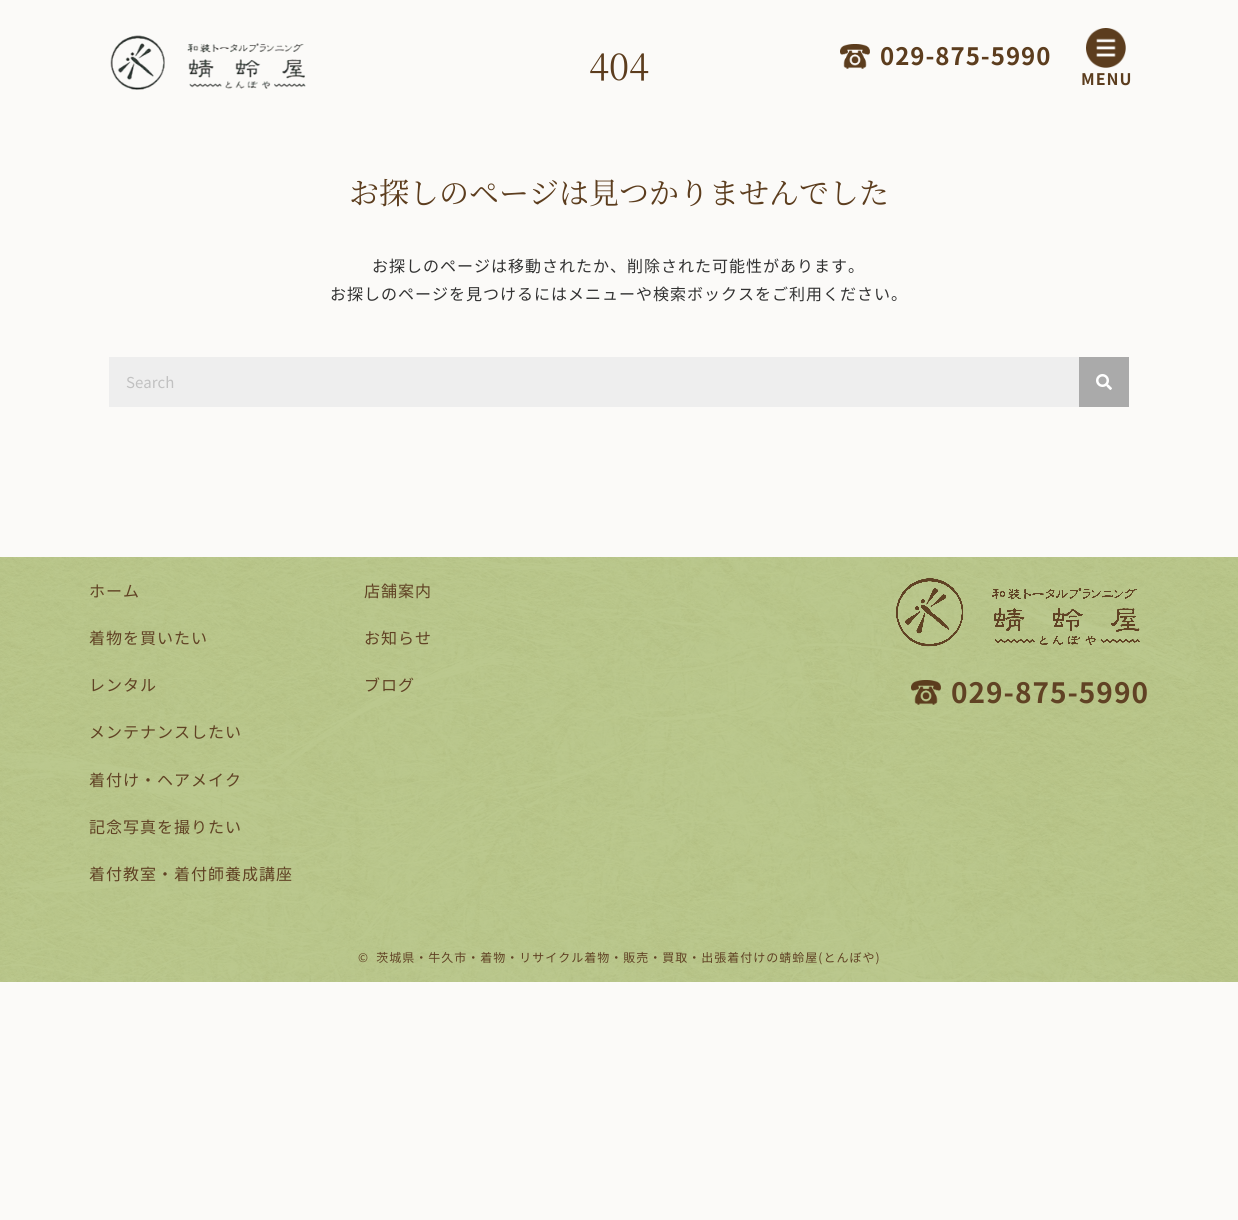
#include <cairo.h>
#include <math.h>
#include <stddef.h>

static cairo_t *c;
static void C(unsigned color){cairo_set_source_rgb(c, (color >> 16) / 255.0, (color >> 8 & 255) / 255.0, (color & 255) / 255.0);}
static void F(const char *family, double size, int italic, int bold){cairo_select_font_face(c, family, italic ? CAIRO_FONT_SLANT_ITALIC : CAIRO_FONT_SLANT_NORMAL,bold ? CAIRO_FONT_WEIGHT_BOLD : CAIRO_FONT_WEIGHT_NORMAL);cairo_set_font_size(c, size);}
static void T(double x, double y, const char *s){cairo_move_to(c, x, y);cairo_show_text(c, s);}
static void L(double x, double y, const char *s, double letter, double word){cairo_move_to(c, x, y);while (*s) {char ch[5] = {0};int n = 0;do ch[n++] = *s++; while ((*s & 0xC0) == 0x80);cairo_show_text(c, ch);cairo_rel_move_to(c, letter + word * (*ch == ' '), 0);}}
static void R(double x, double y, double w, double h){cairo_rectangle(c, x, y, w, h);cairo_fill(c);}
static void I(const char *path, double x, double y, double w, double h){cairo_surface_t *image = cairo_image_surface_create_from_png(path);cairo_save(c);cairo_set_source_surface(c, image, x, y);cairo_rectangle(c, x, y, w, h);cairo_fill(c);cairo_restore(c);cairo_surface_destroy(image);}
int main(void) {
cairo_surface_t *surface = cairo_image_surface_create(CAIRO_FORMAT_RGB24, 1238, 1220);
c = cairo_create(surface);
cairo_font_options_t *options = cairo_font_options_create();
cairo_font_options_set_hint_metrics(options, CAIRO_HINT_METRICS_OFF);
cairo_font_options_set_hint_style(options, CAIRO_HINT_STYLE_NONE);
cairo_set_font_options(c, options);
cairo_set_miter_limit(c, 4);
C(0xfbfaf8);
cairo_paint(c);
F("Noto Serif JP ExtraLight",36,0,0);
C(0x5c3d1e);
T(589,80,"404");
F("Noto Serif JP ExtraLight",30,0,0);
T(349,204,"お探しのページは見つかりませんでした");
F("Noto Sans JP",16,0,0);
C(0x333333);
L(372,272,"お探しのページは移動されたか、削除された可能性があります。",1,0);
L(330,300,"お探しのページを見つけるにはメニューや検索ボックスをご利用ください。",1,0);
C(0xeeeeee);
R(109,357,970,50);
F("Noto Sans JP",15,0,0);
C(0xc1c1c1);
T(126,388,"Search");
C(0xaaaaaa);
R(1079,357,50,50);
I("1.png",1096,374,16,16);
I("2.png",110,35,196,55);
I("3.png",840,44,30,25);
F("Noto Sans JP",24,0,1);
C(0x5c3d1e);
L(880,65,"029-875-5990",1,0);
I("4.png",1086,28,40,40);
F("Noto Sans JP",16,0,1);
L(1081,85,"MENU",1,0);
I("5.png",0,557,1238,425);
F("Noto Sans JP",16,0,0);
C(0x604224);
L(89,597,"ホーム",1,0);
L(89,644,"着物を買いたい",1,0);
L(89,691,"レンタル",1,0);
L(89,738,"メンテナンスしたい",1,0);
L(89,786,"着付け・ヘアメイク",1,0);
L(89,833,"記念写真を撮りたい",1,0);
L(89,880,"着付教室・着付師養成講座",1,0);
L(364,597,"店舗案内",1,0);
L(364,644,"お知らせ",1,0);
L(364,691,"ブログ",1,0);
I("6.png",896,578,244,69);
I("7.png",911,680,30,25);
F("Noto Sans JP",28,0,1);
L(951,703,"029-875-5990",1,0);
F("Noto Sans JP",12,0,0);
L(358,962,"©  茨城県・牛久市・着物・リサイクル着物・販売・買取・出張着付けの蜻蛉屋(とんぼや)",1,0);
cairo_surface_write_to_png(surface, "o.png");
cairo_font_options_destroy(options);
cairo_destroy(c);
cairo_surface_destroy(surface);
return 0;
}
